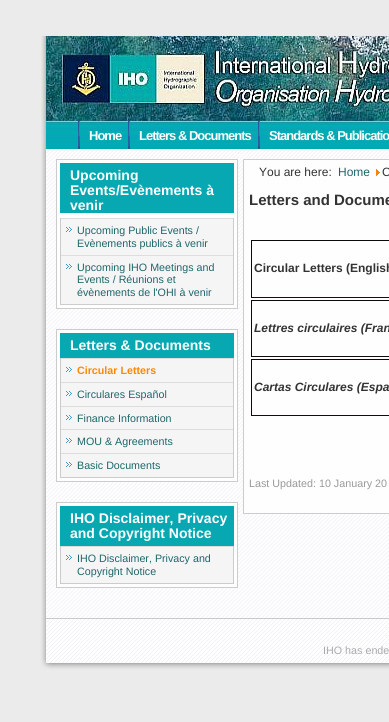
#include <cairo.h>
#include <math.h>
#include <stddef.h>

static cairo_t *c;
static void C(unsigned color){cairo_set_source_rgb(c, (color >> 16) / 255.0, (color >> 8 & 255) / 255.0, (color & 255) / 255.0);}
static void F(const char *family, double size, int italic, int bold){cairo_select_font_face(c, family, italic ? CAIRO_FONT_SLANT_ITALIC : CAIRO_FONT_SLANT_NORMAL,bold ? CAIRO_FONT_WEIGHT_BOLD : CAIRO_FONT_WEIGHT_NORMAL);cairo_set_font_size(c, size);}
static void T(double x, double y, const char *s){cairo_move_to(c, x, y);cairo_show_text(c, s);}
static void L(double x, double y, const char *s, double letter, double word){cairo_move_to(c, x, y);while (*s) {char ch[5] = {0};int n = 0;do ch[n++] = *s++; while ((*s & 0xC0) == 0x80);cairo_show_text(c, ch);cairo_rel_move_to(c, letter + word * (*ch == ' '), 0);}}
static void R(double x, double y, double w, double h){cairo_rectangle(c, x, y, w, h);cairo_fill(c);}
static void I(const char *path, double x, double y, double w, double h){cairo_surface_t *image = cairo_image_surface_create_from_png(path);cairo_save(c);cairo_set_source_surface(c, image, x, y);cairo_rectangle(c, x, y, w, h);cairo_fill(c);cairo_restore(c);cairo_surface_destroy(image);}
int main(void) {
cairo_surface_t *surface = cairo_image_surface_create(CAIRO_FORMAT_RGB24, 389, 722);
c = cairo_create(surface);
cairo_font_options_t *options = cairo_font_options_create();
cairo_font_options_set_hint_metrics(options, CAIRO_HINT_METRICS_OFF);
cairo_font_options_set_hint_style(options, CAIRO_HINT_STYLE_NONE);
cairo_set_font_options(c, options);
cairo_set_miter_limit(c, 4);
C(0xebebeb);
cairo_paint(c);
I("1.png",41,36,5,582);
I("2.png",46,36,343,85);
I("3.png",46,121,343,28);
I("4.png",78,121,2,28);
I("4.png",128,121,2,28);
F("Liberation Sans",13,0,1);
C(0xfefefe);
L(89,140,"Home",-1,0);
I("4.png",258,121,2,28);
L(139,140,"Letters & Documents",-1,0);
L(269,140,"Standards & Publicatio",-1,0);
I("5.png",46,149,343,469);
cairo_rectangle(c,56.5,159.5,181,149);
cairo_fill_preserve(c);
C(0xcccccc);
cairo_set_line_width(c,1);
cairo_stroke(c);
C(0x07a8b2);
R(60,163,174,50);
F("Liberation Sans",14,0,1);
C(0xfefefe);
T(70,180,"Upcoming");
T(70,195,"Events/Evènements à");
T(70,210,"venir");
C(0xf5f5f5);
R(61,219,172,85);
C(0xcccccc);
R(233,218,1,87);
R(60,304,174,1);
R(60,218,1,87);
I("6.png",66,227,6,5);
C(0xdddddd);
R(61,218,172,1);
F("Liberation Sans",10.7,0,0);
C(0x1e666a);
T(77,234,"Upcoming Public Events /");
T(77,247,"Evènements publics à venir");
I("6.png",66,264,6,5);
C(0xdddddd);
R(61,255,172,1);
C(0x1e666a);
T(77,271,"Upcoming IHO Meetings and");
T(77,283,"Events / Réunions et");
T(77,296,"évènements de l'OHI à venir");
C(0xfefefe);
cairo_rectangle(c,56.5,329.5,181,152);
cairo_fill_preserve(c);
C(0xcccccc);
cairo_stroke(c);
C(0x07a8b2);
R(60,333,174,25);
F("Liberation Sans",14,0,1);
C(0xfefefe);
T(70,350,"Letters & Documents");
C(0xf5f5f5);
R(61,359,172,118);
C(0xcccccc);
R(233,358,1,120);
R(60,477,174,1);
R(60,358,1,120);
I("6.png",66,367,6,5);
C(0xdddddd);
R(61,358,172,1);
F("Liberation Sans",10.7,0,1);
C(0xff8800);
T(77,374,"Circular Letters");
I("6.png",66,391,6,5);
C(0xdddddd);
R(61,382,172,1);
F("Liberation Sans",10.7,0,0);
C(0x1e666a);
T(77,398,"Circulares Español");
I("6.png",66,415,6,5);
C(0xdddddd);
R(61,406,172,1);
C(0x1e666a);
T(77,422,"Finance Information");
I("6.png",66,438,6,5);
C(0xdddddd);
R(61,429,172,1);
C(0x1e666a);
T(77,445,"MOU & Agreements");
I("6.png",66,462,6,5);
C(0xdddddd);
R(61,453,172,1);
C(0x1e666a);
T(77,469,"Basic Documents");
C(0xfefefe);
cairo_rectangle(c,56.5,502.5,181,85);
cairo_fill_preserve(c);
C(0xcccccc);
cairo_stroke(c);
C(0x07a8b2);
R(60,506,174,40);
F("Liberation Sans",14,0,1);
C(0xfefefe);
T(70,523,"IHO Disclaimer, Privacy");
T(70,538,"and Copyright Notice");
C(0xf5f5f5);
R(61,547,172,36);
C(0xcccccc);
R(233,546,1,38);
R(60,583,174,1);
R(60,546,1,38);
I("6.png",66,555,6,5);
C(0xdddddd);
R(61,546,172,1);
F("Liberation Sans",10.7,0,0);
C(0x1e666a);
T(77,562,"IHO Disclaimer, Privacy and");
T(77,575,"Copyright Notice");
C(0xfefefe);
cairo_rectangle(c,243.5,159.5,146,354);
cairo_fill_preserve(c);
C(0xcccccc);
cairo_stroke(c);
F("Liberation Sans",12,0,0);
C(0x333333);
T(259,176,"You are here:");
C(0x1e666a);
T(338,176,"Home");
I("7.png",376,169,4,7);
C(0x333333);
T(382,176,"C");
F("Liberation Sans",15,0,1);
T(249,205,"Letters and Docume");
C(0x0c0909);
R(251,240,138,1);
C(0x120e0e);
R(251,297,138,1);
C(0x0c0909);
R(251,240,1,58);
F("Liberation Sans",12,0,1);
C(0x333333);
T(254,272,"Circular Letters (English");
C(0x0c0909);
R(251,300,138,1);
C(0x120e0e);
R(251,356,138,1);
C(0x0c0909);
R(251,300,1,57);
F("Liberation Sans",12,1,1);
C(0x333333);
T(254,332,"Lettres circulaires (Fran");
C(0x0c0909);
R(251,359,138,1);
C(0x120e0e);
R(251,415,138,1);
C(0x0c0909);
R(251,359,1,57);
C(0x333333);
T(254,391,"Cartas Circulares (Espa");
F("Liberation Sans",10.75,0,0);
C(0x999999);
T(249,487,"Last Updated: 10 January 20");
I("8.png",40,618,349,57);
I("9.png",40,618,40,51);
C(0xaaaaaa);
T(323,654,"IHO has ende");
cairo_surface_write_to_png(surface, "o.png");
cairo_font_options_destroy(options);
cairo_destroy(c);
cairo_surface_destroy(surface);
return 0;
}
